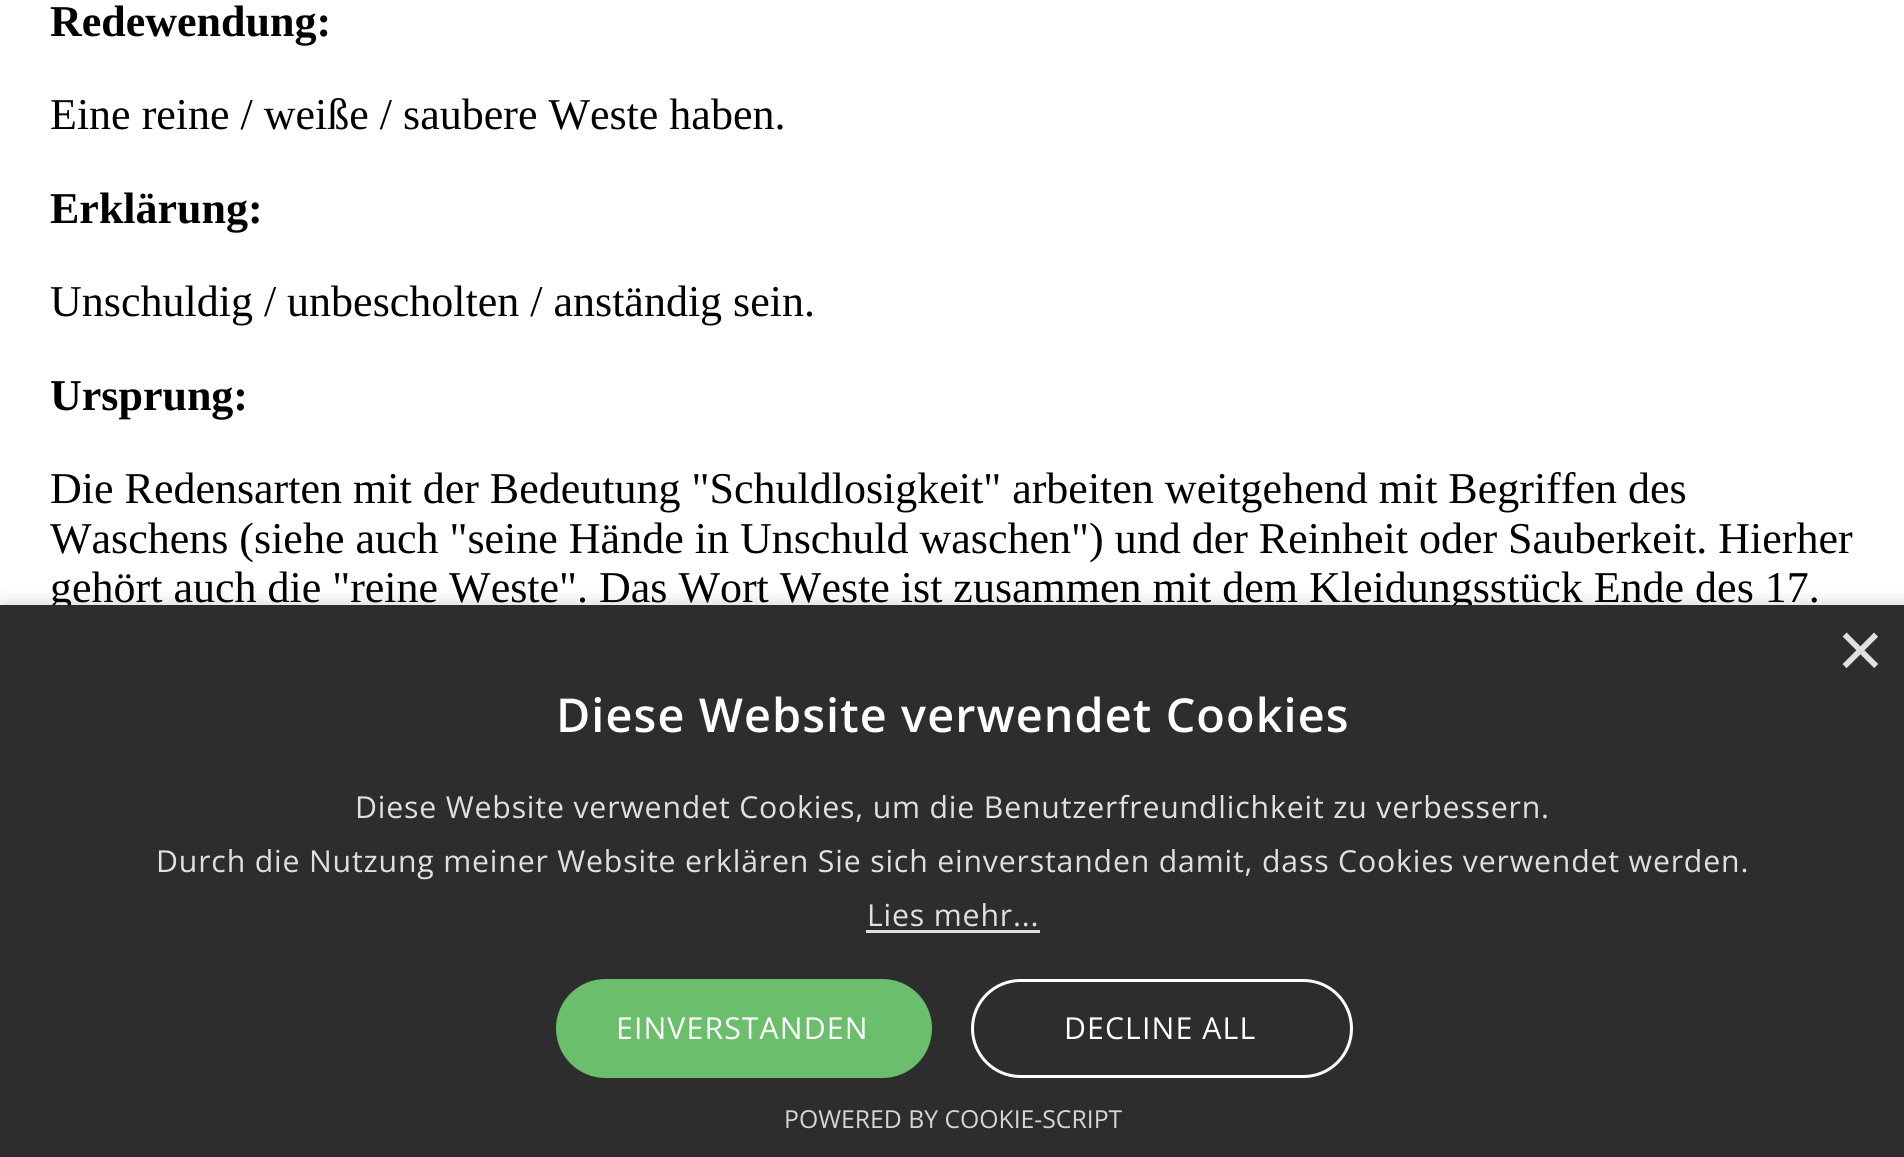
#include <cairo.h>
#include <math.h>
#include <stddef.h>

static cairo_t *c;
static void C(unsigned color){cairo_set_source_rgb(c, (color >> 16) / 255.0, (color >> 8 & 255) / 255.0, (color & 255) / 255.0);}
static void F(const char *family, double size, int italic, int bold){cairo_select_font_face(c, family, italic ? CAIRO_FONT_SLANT_ITALIC : CAIRO_FONT_SLANT_NORMAL,bold ? CAIRO_FONT_WEIGHT_BOLD : CAIRO_FONT_WEIGHT_NORMAL);cairo_set_font_size(c, size);}
static void T(double x, double y, const char *s){cairo_move_to(c, x, y);cairo_show_text(c, s);}
static void L(double x, double y, const char *s, double letter, double word){cairo_move_to(c, x, y);while (*s) {char ch[5] = {0};int n = 0;do ch[n++] = *s++; while ((*s & 0xC0) == 0x80);cairo_show_text(c, ch);cairo_rel_move_to(c, letter + word * (*ch == ' '), 0);}}
static void R(double x, double y, double w, double h){cairo_rectangle(c, x, y, w, h);cairo_fill(c);}
static void Q(double x, double y, double w, double h, double r){cairo_new_sub_path(c);cairo_arc(c, x + w - r, y + h - r, r, 0, M_PI / 2);cairo_arc(c, x + r, y + h - r, r, M_PI / 2, M_PI);cairo_arc(c, x + r, y + r, r, M_PI, 1.5 * M_PI);cairo_arc(c, x + w - r, y + r, r, 1.5 * M_PI, 2 * M_PI);cairo_close_path(c);}
static void S(double x, double y, double w, double h, double r, double blur, double alpha){cairo_push_group_with_content(c, CAIRO_CONTENT_ALPHA);cairo_set_operator(c, CAIRO_OPERATOR_SOURCE);for (int i = 15; i >= -15 && fmin(w, h) + blur * i / 3 > 0; i -= 2) {double e = blur * i / 6;cairo_set_source_rgba(c, 0, 0, 0, alpha * erfc((i - 1) / 8.5) / 2);Q(x - e, y - e, w + 2 * e, h + 2 * e, fmax(0, fmin(r + e + blur * .6, fmin(w, h) / 2 + e)));cairo_fill(c);}cairo_pattern_t *soft = cairo_pop_group(c);cairo_mask(c, soft);cairo_pattern_destroy(soft);}
int main(void) {
cairo_surface_t *surface = cairo_image_surface_create(CAIRO_FORMAT_RGB24, 1904, 1157);
c = cairo_create(surface);
cairo_font_options_t *options = cairo_font_options_create();
cairo_font_options_set_hint_metrics(options, CAIRO_HINT_METRICS_OFF);
cairo_font_options_set_hint_style(options, CAIRO_HINT_STYLE_NONE);
cairo_set_font_options(c, options);
cairo_set_miter_limit(c, 4);
C(0xffffff);
cairo_paint(c);
F("Liberation Serif",44,0,1);
C(0x000000);
T(50,36,"Redewendung:");
F("Liberation Serif",44,0,0);
T(50,129,"Eine reine / weiße / saubere Weste haben.");
F("Liberation Serif",44,0,1);
T(50,223,"Erklärung:");
F("Liberation Serif",44,0,0);
T(50,316,"Unschuldig / unbescholten / anständig sein.");
F("Liberation Serif",44,0,1);
T(50,410,"Ursprung:");
F("Liberation Serif",44,0,0);
T(50,503,"Die Redensarten mit der Bedeutung \"Schuldlosigkeit\" arbeiten weitgehend mit Begriffen des");
T(50,553,"Waschens (siehe auch \"seine Hände in Unschuld waschen\") und der Reinheit oder Sauberkeit. Hierher");
T(50,602,"gehört auch die \"reine Weste\". Das Wort Weste ist zusammen mit dem Kleidungsstück Ende des 17.");
C(0x000000);
S(3,611,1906,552,0,11,.35);
C(0x2d2d2d);
R(0,605,1904,552);
F("Liberation Sans",80,0,0);
C(0xe0e0e0);
T(1837,677,"×");
F("Open Sans SemiBold",46.75,0,0);
C(0xffffff);
L(556,732,"Diese Website verwendet Cookies",1.1,0);
F("Open Sans",30.25,0,0);
C(0xe0e0e0);
L(355,818,"Diese Website verwendet Cookies, um die Benutzerfreundlichkeit zu verbessern.",.82,0);
L(156,872,"Durch die Nutzung meiner Website erklären Sie sich einverstanden damit, dass Cookies verwendet werden.",.82,0);
L(867,926,"Lies mehr...",.82,0);
R(866,930,174,3);
C(0x6bbe6b);
Q(556,979,376,99,49.5);
cairo_fill(c);
C(0xffffff);
L(616,1039,"EINVERSTANDEN",1.1,0);
Q(972.5,980.5,379,96,48);
cairo_set_line_width(c,3);
cairo_stroke(c);
L(1064,1039,"DECLINE ALL",1.1,0);
F("Open Sans",24.75,0,0);
C(0xd5d5d5);
T(784,1128,"POWERED BY COOKIE-SCRIPT");
cairo_surface_write_to_png(surface, "o.png");
cairo_font_options_destroy(options);
cairo_destroy(c);
cairo_surface_destroy(surface);
return 0;
}
